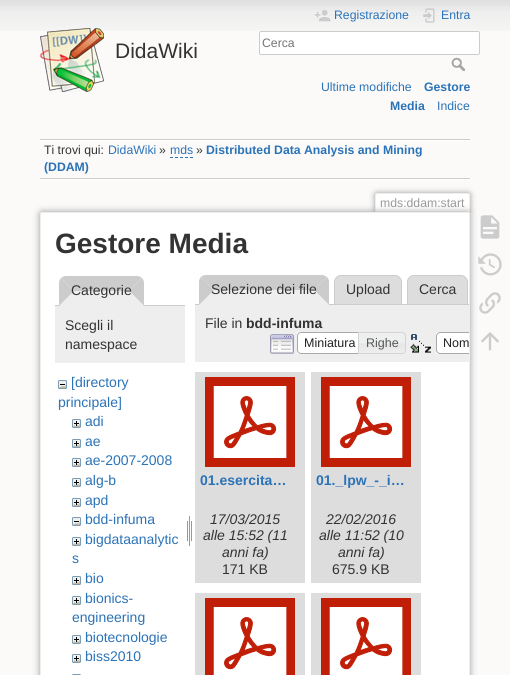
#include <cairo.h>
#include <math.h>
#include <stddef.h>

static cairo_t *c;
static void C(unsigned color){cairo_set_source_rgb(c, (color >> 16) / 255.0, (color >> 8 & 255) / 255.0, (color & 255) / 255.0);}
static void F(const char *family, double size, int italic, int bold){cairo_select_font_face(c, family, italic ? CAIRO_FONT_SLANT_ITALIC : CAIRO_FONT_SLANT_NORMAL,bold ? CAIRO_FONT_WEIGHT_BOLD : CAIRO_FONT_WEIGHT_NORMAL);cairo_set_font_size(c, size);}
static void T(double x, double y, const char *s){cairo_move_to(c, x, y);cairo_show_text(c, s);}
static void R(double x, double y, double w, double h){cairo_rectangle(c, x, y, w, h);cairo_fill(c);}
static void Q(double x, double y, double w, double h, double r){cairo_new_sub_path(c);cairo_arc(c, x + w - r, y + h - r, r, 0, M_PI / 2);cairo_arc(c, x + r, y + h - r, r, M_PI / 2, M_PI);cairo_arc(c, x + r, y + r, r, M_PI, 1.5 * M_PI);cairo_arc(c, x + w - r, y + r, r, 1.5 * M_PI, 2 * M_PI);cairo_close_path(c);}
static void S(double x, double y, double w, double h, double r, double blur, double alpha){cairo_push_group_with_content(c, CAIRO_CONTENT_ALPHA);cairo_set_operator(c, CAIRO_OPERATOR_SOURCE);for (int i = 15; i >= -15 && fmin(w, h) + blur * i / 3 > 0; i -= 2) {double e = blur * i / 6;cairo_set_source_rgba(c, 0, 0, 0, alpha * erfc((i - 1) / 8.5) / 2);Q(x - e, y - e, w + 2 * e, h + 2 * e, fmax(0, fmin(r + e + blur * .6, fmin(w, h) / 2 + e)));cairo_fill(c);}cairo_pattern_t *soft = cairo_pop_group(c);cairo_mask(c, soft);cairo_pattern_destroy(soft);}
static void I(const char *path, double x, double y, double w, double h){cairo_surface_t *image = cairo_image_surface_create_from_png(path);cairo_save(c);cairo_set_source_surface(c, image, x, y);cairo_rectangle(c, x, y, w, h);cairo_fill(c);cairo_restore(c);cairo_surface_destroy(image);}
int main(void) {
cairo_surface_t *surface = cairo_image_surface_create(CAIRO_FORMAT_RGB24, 510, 675);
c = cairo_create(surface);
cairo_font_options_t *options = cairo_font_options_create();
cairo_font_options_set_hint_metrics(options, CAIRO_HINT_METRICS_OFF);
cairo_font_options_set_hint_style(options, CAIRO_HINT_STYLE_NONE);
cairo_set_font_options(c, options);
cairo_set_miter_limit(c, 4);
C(0xfbfaf9);
cairo_paint(c);
I("1.png",0,0,510,31);
I("2.png",40,28,64,64);
F("Liberation Sans",21,0,0);
C(0x333333);
T(115,58,"DidaWiki");
I("3.png",314,10,17,12);
F("Liberation Sans",12.25,0,0);
C(0x2b73b7);
T(334,19,"Registrazione");
I("4.png",423,8,12,15);
T(441,19,"Entra");
C(0xffffff);
Q(259.5,31.5,220,23,1.5);
cairo_fill_preserve(c);
C(0xcccccc);
cairo_set_line_width(c,1);
cairo_stroke(c);
C(0x757575);
T(262,47,"Cerca");
I("5.png",451,57,14,14);
C(0x2b73b7);
T(321,91,"Ultime modifiche");
F("Liberation Sans",12.25,0,1);
T(424,91,"Gestore");
T(390,110,"Media");
F("Liberation Sans",12.25,0,0);
T(437,110,"Indice");
C(0xcccccc);
R(40,139,430,1);
C(0xffffff);
R(40,179,430,1);
R(40,140,430,1);
C(0xcccccc);
R(40,178,430,1);
C(0x333333);
T(44,154,"Ti trovi qui:");
C(0x2b73b7);
T(108,154,"DidaWiki");
C(0x333333);
T(159,154,"»");
C(0x2b73b7);
T(170,154,"mds");
cairo_new_path(c);
cairo_move_to(c,170,157.5);
cairo_line_to(c,193,157.5);
cairo_set_dash(c,(double[]){3,2},2,0);
cairo_stroke(c);
C(0x333333);
T(196,154,"»");
F("Liberation Sans",12.25,0,1);
C(0x2b73b7);
T(206,154,"Distributed Data Analysis and Mining");
T(44,171,"(DDAM)");
cairo_save(c);
cairo_rectangle(c,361,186,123,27);
cairo_clip(c);
C(0x999999);
S(375,193,95,20,2,3,1);
cairo_restore(c);
C(0xffffff);
cairo_new_path(c);
cairo_move_to(c,377,194);
cairo_line_to(c,468,194);
cairo_curve_to(c,468.5,194,469,194.5,469,195);
cairo_line_to(c,469,213);
cairo_line_to(c,376,213);
cairo_line_to(c,376,195);
cairo_curve_to(c,376,194.5,376.5,194,377,194);
cairo_close_path(c);
cairo_fill(c);
C(0xeeeeee);
R(376,193,93,1);
R(469,194,1,19);
R(375,194,1,19);
F("Liberation Sans",12.25,0,0);
C(0x999999);
T(380,207,"mds:ddam:start");
C(0x999999);
S(40,212,430,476,2,3.5,1);
C(0xffffff);
Q(40.5,212.5,429,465,1.5);
cairo_fill_preserve(c);
C(0xeeeeee);
cairo_set_dash(c,NULL,0,0);
cairo_stroke(c);
F("Liberation Sans",28,0,1);
C(0x333333);
T(55,253,"Gestore Media");
C(0xcccccc);
cairo_new_path(c);
cairo_move_to(c,66,276);
cairo_line_to(c,137,276);
cairo_curve_to(c,139,276,141,277,142,278);
cairo_line_to(c,129,291);
cairo_line_to(c,74,291);
cairo_line_to(c,61,278);
cairo_curve_to(c,62,277,64,276,66,276);
cairo_close_path(c);
cairo_fill(c);
R(55,305,130,1);
cairo_new_path(c);
cairo_move_to(c,142,278);
cairo_line_to(c,129,291);
cairo_line_to(c,144,306);
cairo_line_to(c,144,283);
cairo_curve_to(c,144,281,143,279,142,278);
cairo_close_path(c);
cairo_fill(c);
C(0xeeeeee);
cairo_new_path(c);
cairo_move_to(c,144,306);
cairo_line_to(c,129,291);
cairo_line_to(c,74,291);
cairo_line_to(c,59,306);
cairo_close_path(c);
cairo_fill(c);
C(0xcccccc);
cairo_new_path(c);
cairo_move_to(c,59,306);
cairo_line_to(c,59,283);
cairo_curve_to(c,59,281,60,279,61,278);
cairo_line_to(c,74,291);
cairo_close_path(c);
cairo_fill(c);
F("Liberation Sans",14,0,0);
C(0x333333);
T(71,295,"Categorie");
C(0xeeeeee);
R(55,306,130,57);
C(0x333333);
T(65,330,"Scegli il");
T(65,349,"namespace");
I("6.png",58,380,9,9);
C(0x2b73b7);
T(71,387,"[directory");
T(58,407,"principale]");
I("7.png",72,419,9,9);
T(85,426,"adi");
I("7.png",72,439,9,9);
T(85,446,"ae");
I("7.png",72,458,9,9);
T(85,465,"ae-2007-2008");
I("7.png",72,478,9,9);
T(85,485,"alg-b");
I("7.png",72,498,9,9);
T(85,505,"apd");
I("6.png",72,517,9,9);
T(85,524,"bdd-infuma");
I("7.png",72,537,9,9);
T(85,544,"bigdataanalytic");
T(72,563,"s");
I("7.png",72,576,9,9);
T(85,583,"bio");
I("7.png",72,596,9,9);
T(85,603,"bionics-");
T(72,622,"engineering");
I("7.png",72,635,9,9);
T(85,642,"biotecnologie");
I("7.png",72,654,9,9);
T(85,661,"biss2010");
I("8.png",72,674,9,1);
I("9.png",187,515,5,31);
C(0xdddddd);
cairo_new_path(c);
cairo_move_to(c,341,275.5);
cairo_line_to(c,395,275.5);
cairo_curve_to(c,398.5,275.5,401.5,278.5,401.5,282);
cairo_line_to(c,401.5,304.5);
cairo_line_to(c,334.5,304.5);
cairo_line_to(c,334.5,282);
cairo_curve_to(c,334.5,278.5,337.5,275.5,341,275.5);
cairo_close_path(c);
cairo_fill_preserve(c);
C(0xcccccc);
cairo_stroke(c);
C(0xdddddd);
cairo_new_path(c);
cairo_move_to(c,414,275.5);
cairo_line_to(c,461,275.5);
cairo_curve_to(c,464.5,275.5,467.5,278.5,467.5,282);
cairo_line_to(c,467.5,304.5);
cairo_line_to(c,407.5,304.5);
cairo_line_to(c,407.5,282);
cairo_curve_to(c,407.5,278.5,410.5,275.5,414,275.5);
cairo_close_path(c);
cairo_fill_preserve(c);
C(0xcccccc);
cairo_stroke(c);
R(195,304,274,1);
C(0xeeeeee);
cairo_new_path(c);
cairo_move_to(c,206,275);
cairo_line_to(c,322,275);
cairo_curve_to(c,326,275,329,278,329,282);
cairo_line_to(c,329,305);
cairo_line_to(c,199,305);
cairo_line_to(c,199,282);
cairo_curve_to(c,199,278,202,275,206,275);
cairo_close_path(c);
cairo_fill(c);
C(0xcccccc);
cairo_new_path(c);
cairo_move_to(c,206,275);
cairo_line_to(c,323,275);
cairo_line_to(c,327,277);
cairo_line_to(c,314,290);
cairo_line_to(c,214,290);
cairo_line_to(c,201,277);
cairo_curve_to(c,202,276,204,275,206,275);
cairo_close_path(c);
cairo_fill(c);
cairo_new_path(c);
cairo_move_to(c,327,277);
cairo_line_to(c,314,290);
cairo_line_to(c,329,305);
cairo_line_to(c,329,282);
cairo_curve_to(c,329,280,328,278,327,277);
cairo_close_path(c);
cairo_fill(c);
C(0xeeeeee);
cairo_new_path(c);
cairo_move_to(c,329,305);
cairo_line_to(c,314,290);
cairo_line_to(c,214,290);
cairo_line_to(c,199,305);
cairo_close_path(c);
cairo_fill(c);
C(0xcccccc);
cairo_new_path(c);
cairo_move_to(c,199,305);
cairo_line_to(c,199,282);
cairo_curve_to(c,199,280,200,278,201,277);
cairo_line_to(c,214,290);
cairo_close_path(c);
cairo_fill(c);
C(0x333333);
T(211,294,"Selezione dei file");
T(346,294,"Upload");
T(419,294,"Cerca");
C(0xeeeeee);
R(195,305,274,57);
C(0x333333);
T(205,328,"File in");
F("Liberation Sans",14,0,1);
T(246,328,"bdd-infuma");
I("10.png",270,334,24,20);
C(0xffffff);
R(297,332,61,22);
cairo_new_path(c);
cairo_move_to(c,301,332.5);
cairo_line_to(c,362.5,332.5);
cairo_line_to(c,362.5,353.5);
cairo_line_to(c,301,353.5);
cairo_curve_to(c,299,353.5,297.5,352,297.5,350);
cairo_line_to(c,297.5,336);
cairo_curve_to(c,297.5,334,299,332.5,301,332.5);
cairo_close_path(c);
C(0xaaaaaa);
cairo_stroke(c);
F("Liberation Sans",12.5,0,0);
C(0x212121);
T(304,347,"Miniatura");
I("11.png",359,332,47,22);
cairo_new_path(c);
cairo_move_to(c,358.5,332.5);
cairo_line_to(c,402,332.5);
cairo_curve_to(c,404,332.5,405.5,334,405.5,336);
cairo_line_to(c,405.5,350);
cairo_curve_to(c,405.5,352,404,353.5,402,353.5);
cairo_line_to(c,358.5,353.5);
cairo_close_path(c);
C(0xd3d3d3);
cairo_stroke(c);
C(0x555555);
T(366,347,"Righe");
I("12.png",410,334,21,19);
C(0xffffff);
R(436,332,33,22);
C(0xaaaaaa);
cairo_new_path(c);
cairo_move_to(c,440,332);
cairo_curve_to(c,438,332,436,334,436,336);
cairo_line_to(c,436,350);
cairo_curve_to(c,436,352,438,354,440,354);
cairo_line_to(c,469,354);
cairo_line_to(c,469,353);
cairo_line_to(c,440,353);
cairo_curve_to(c,438.5,353,437,351.5,437,350);
cairo_line_to(c,437,336);
cairo_curve_to(c,437,334.5,438.5,333,440,333);
cairo_line_to(c,469,333);
cairo_line_to(c,469,332);
cairo_close_path(c);
cairo_fill(c);
C(0x212121);
T(443,347,"Nom");
C(0xdddddd);
R(195,372,110,211);
I("13.png",205,377,90,90);
F("Liberation Sans",14,0,1);
C(0x2b73b7);
T(200,485,"01.esercita…");
F("Liberation Sans",14,1,0);
C(0x333333);
T(210,524,"17/03/2015");
T(203,540,"alle 15:52 (11");
T(222,557,"anni fa)");
F("Liberation Sans",14,0,0);
T(222,574,"171 KB");
C(0xdddddd);
R(311,372,110,211);
I("13.png",321,377,90,90);
F("Liberation Sans",14,0,1);
C(0x2b73b7);
T(316,485,"01._lpw_-_i…");
F("Liberation Sans",14,1,0);
C(0x333333);
T(326,524,"22/02/2016");
T(319,540,"alle 11:52 (10");
T(338,557,"anni fa)");
F("Liberation Sans",14,0,0);
T(332,574,"675.9 KB");
C(0xdddddd);
R(195,593,110,82);
I("14.png",205,598,90,77);
R(311,593,110,82);
I("14.png",321,598,90,77);
I("15.png",480,215,20,24);
I("16.png",478,253,24,23);
I("17.png",479,292,22,22);
I("18.png",481,332,18,19);
cairo_surface_write_to_png(surface, "o.png");
cairo_font_options_destroy(options);
cairo_destroy(c);
cairo_surface_destroy(surface);
return 0;
}
